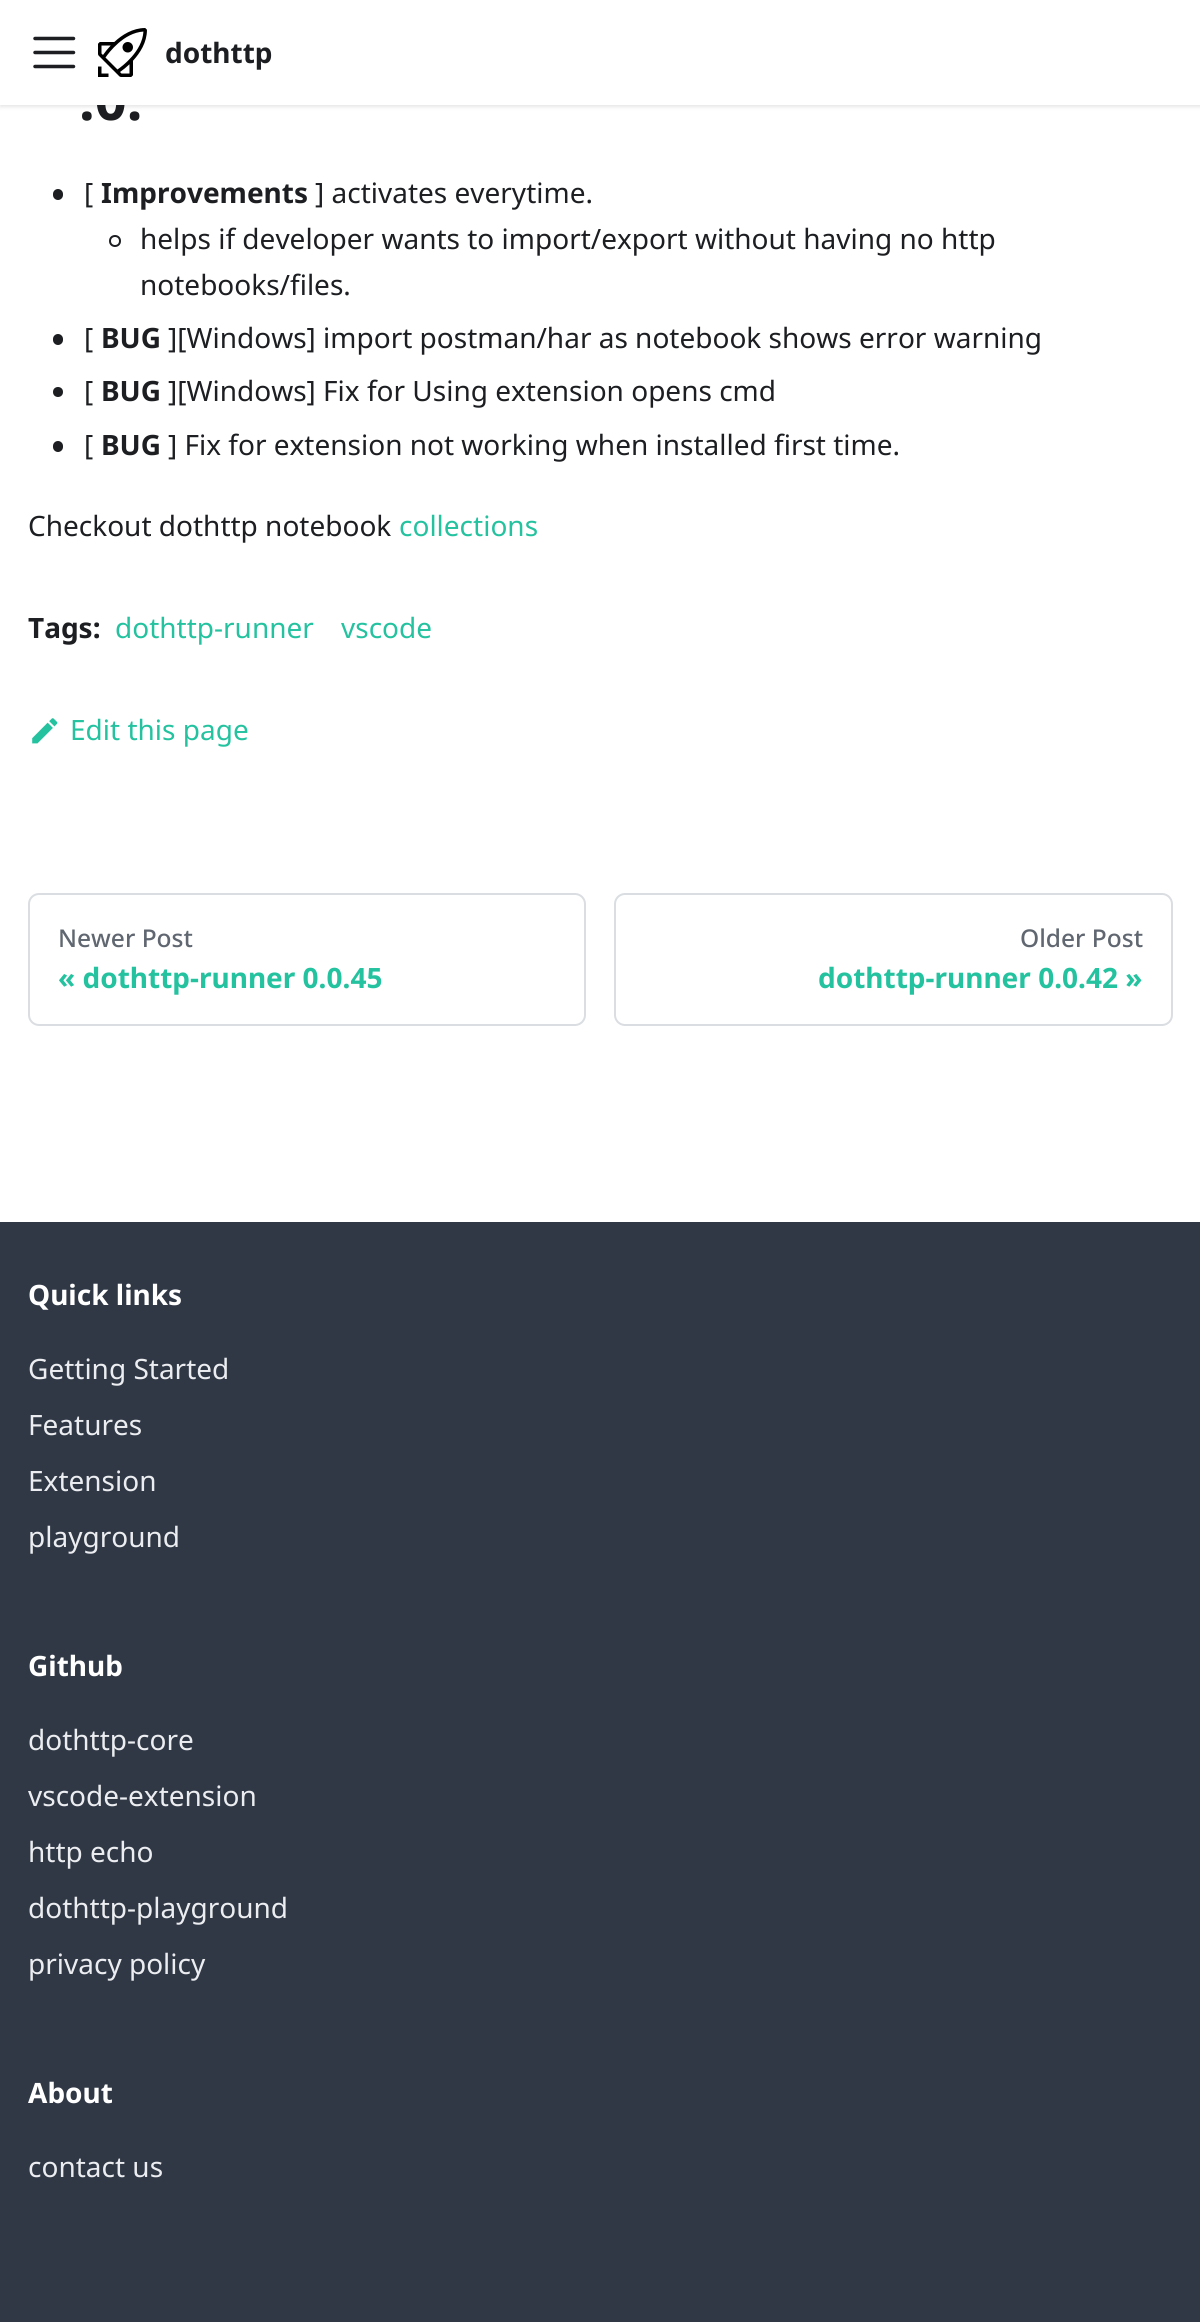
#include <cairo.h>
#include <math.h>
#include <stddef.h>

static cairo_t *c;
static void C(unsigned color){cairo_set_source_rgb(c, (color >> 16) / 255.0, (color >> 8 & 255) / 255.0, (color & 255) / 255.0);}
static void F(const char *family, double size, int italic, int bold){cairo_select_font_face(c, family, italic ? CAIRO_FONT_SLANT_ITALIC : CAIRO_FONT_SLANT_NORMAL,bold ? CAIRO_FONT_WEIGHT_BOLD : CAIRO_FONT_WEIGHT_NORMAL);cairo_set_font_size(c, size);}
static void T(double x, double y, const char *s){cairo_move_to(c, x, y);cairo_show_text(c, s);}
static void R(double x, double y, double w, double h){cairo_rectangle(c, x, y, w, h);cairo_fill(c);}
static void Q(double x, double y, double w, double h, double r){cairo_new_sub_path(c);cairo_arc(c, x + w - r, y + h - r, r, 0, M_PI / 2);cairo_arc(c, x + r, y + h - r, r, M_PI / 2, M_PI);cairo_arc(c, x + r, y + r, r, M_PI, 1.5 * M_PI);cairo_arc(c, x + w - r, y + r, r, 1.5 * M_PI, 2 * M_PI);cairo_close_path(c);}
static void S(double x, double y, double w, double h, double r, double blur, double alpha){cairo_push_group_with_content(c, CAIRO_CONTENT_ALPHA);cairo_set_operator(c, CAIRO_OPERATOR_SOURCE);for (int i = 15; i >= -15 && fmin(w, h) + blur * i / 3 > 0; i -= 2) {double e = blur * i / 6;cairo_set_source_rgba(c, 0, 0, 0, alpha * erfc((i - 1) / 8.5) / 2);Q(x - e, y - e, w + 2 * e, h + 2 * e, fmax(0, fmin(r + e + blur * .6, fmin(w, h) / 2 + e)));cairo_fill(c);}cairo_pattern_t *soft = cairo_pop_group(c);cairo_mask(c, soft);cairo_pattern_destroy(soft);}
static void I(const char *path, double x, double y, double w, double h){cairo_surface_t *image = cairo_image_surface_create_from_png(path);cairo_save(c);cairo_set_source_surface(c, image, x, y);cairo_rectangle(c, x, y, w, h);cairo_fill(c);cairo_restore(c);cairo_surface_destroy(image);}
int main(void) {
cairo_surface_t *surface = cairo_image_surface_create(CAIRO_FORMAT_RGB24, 1200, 2322);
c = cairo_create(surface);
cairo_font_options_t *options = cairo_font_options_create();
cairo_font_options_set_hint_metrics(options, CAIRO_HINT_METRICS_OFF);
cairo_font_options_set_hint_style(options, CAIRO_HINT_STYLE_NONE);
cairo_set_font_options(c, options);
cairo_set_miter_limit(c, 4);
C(0xffffff);
cairo_paint(c);
C(0x000000);
S(0,2,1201,105,0,2,.1);
F("Noto Sans",56,0,1);
C(0x1c1e21);
T(79,120,".0.");
C(0xffffff);
R(0,0,1200,105);
cairo_new_path(c);
cairo_move_to(c,35,38.5);
cairo_line_to(c,73.5,38.5);
cairo_move_to(c,35,52.5);
cairo_line_to(c,73.5,52.5);
cairo_move_to(c,35,66.5);
cairo_line_to(c,73.5,66.5);
C(0x1c1e21);
cairo_set_line_width(c,3.5);
cairo_set_line_cap(c,CAIRO_LINE_CAP_ROUND);
cairo_stroke(c);
I("1.png",98,28,49,49);
F("Noto Sans",28,0,1);
T(165,63,"dothttp");
Q(53,189,10,11,5);
cairo_fill(c);
F("Noto Sans",28,0,0);
T(84,203,"[");
F("Noto Sans",28,0,1);
T(101,203,"Improvements");
F("Noto Sans",28,0,0);
T(315,203,"] activates everytime.");
cairo_new_path(c);
cairo_arc(c,115,241,5,0,2 * M_PI);
cairo_set_line_width(c,2);
cairo_set_line_cap(c,CAIRO_LINE_CAP_BUTT);
cairo_stroke(c);
T(140,249,"helps if developer wants to import/export without having no http");
T(140,295,"notebooks/files.");
Q(53,334,10,11,5);
cairo_fill(c);
T(84,348,"[");
F("Noto Sans",28,0,1);
T(101,348,"BUG");
F("Noto Sans",28,0,0);
T(168,348,"][Windows] import postman/har as notebook shows error warning");
cairo_new_path(c);
cairo_arc(c,58,392,5,0,2 * M_PI);
cairo_fill(c);
T(84,401,"[");
F("Noto Sans",28,0,1);
T(101,401,"BUG");
F("Noto Sans",28,0,0);
T(168,401,"][Windows] Fix for Using extension opens cmd");
Q(53,441,10,11,5);
cairo_fill(c);
T(84,455,"[");
F("Noto Sans",28,0,1);
T(101,455,"BUG");
F("Noto Sans",28,0,0);
T(168,455,"] Fix for extension not working when installed first time.");
T(28,536,"Checkout dothttp notebook");
C(0x25c2a0);
T(399,536,"collections");
F("Noto Sans",28,0,1);
C(0x1c1e21);
T(28,638,"Tags:");
F("Noto Sans",28,0,0);
C(0x25c2a0);
T(115,638,"dothttp-runner");
T(341,638,"vscode");
I("2.png",32,718,26,26);
T(70,740,"Edit this page");
Q(29,894,556,131,10);
C(0xdadde1);
cairo_stroke(c);
F("Noto Sans Medium",24.5,0,0);
C(0x606770);
T(58,947,"Newer Post");
F("Noto Sans",28,0,1);
C(0x25c2a0);
T(58,988,"« dothttp-runner 0.0.45");
Q(615,894,557,131,10);
C(0xdadde1);
cairo_stroke(c);
F("Noto Sans Medium",24.5,0,0);
C(0x606770);
T(1020,947,"Older Post");
F("Noto Sans",28,0,1);
C(0x25c2a0);
T(818,988,"dothttp-runner 0.0.42 »");
C(0x303846);
R(0,1222,1200,1100);
C(0xffffff);
T(28,1305,"Quick links");
F("Noto Sans",28,0,0);
C(0xebedf0);
T(28,1379,"Getting Started");
T(28,1435,"Features");
T(28,1491,"Extension");
T(28,1547,"playground");
F("Noto Sans",28,0,1);
C(0xffffff);
T(28,1676,"Github");
F("Noto Sans",28,0,0);
C(0xebedf0);
T(28,1750,"dothttp-core");
T(28,1806,"vscode-extension");
T(28,1862,"http echo");
T(28,1918,"dothttp-playground");
T(28,1974,"privacy policy");
F("Noto Sans",28,0,1);
C(0xffffff);
T(28,2103,"About");
F("Noto Sans",28,0,0);
C(0xebedf0);
T(28,2177,"contact us");
cairo_surface_write_to_png(surface, "o.png");
cairo_font_options_destroy(options);
cairo_destroy(c);
cairo_surface_destroy(surface);
return 0;
}
